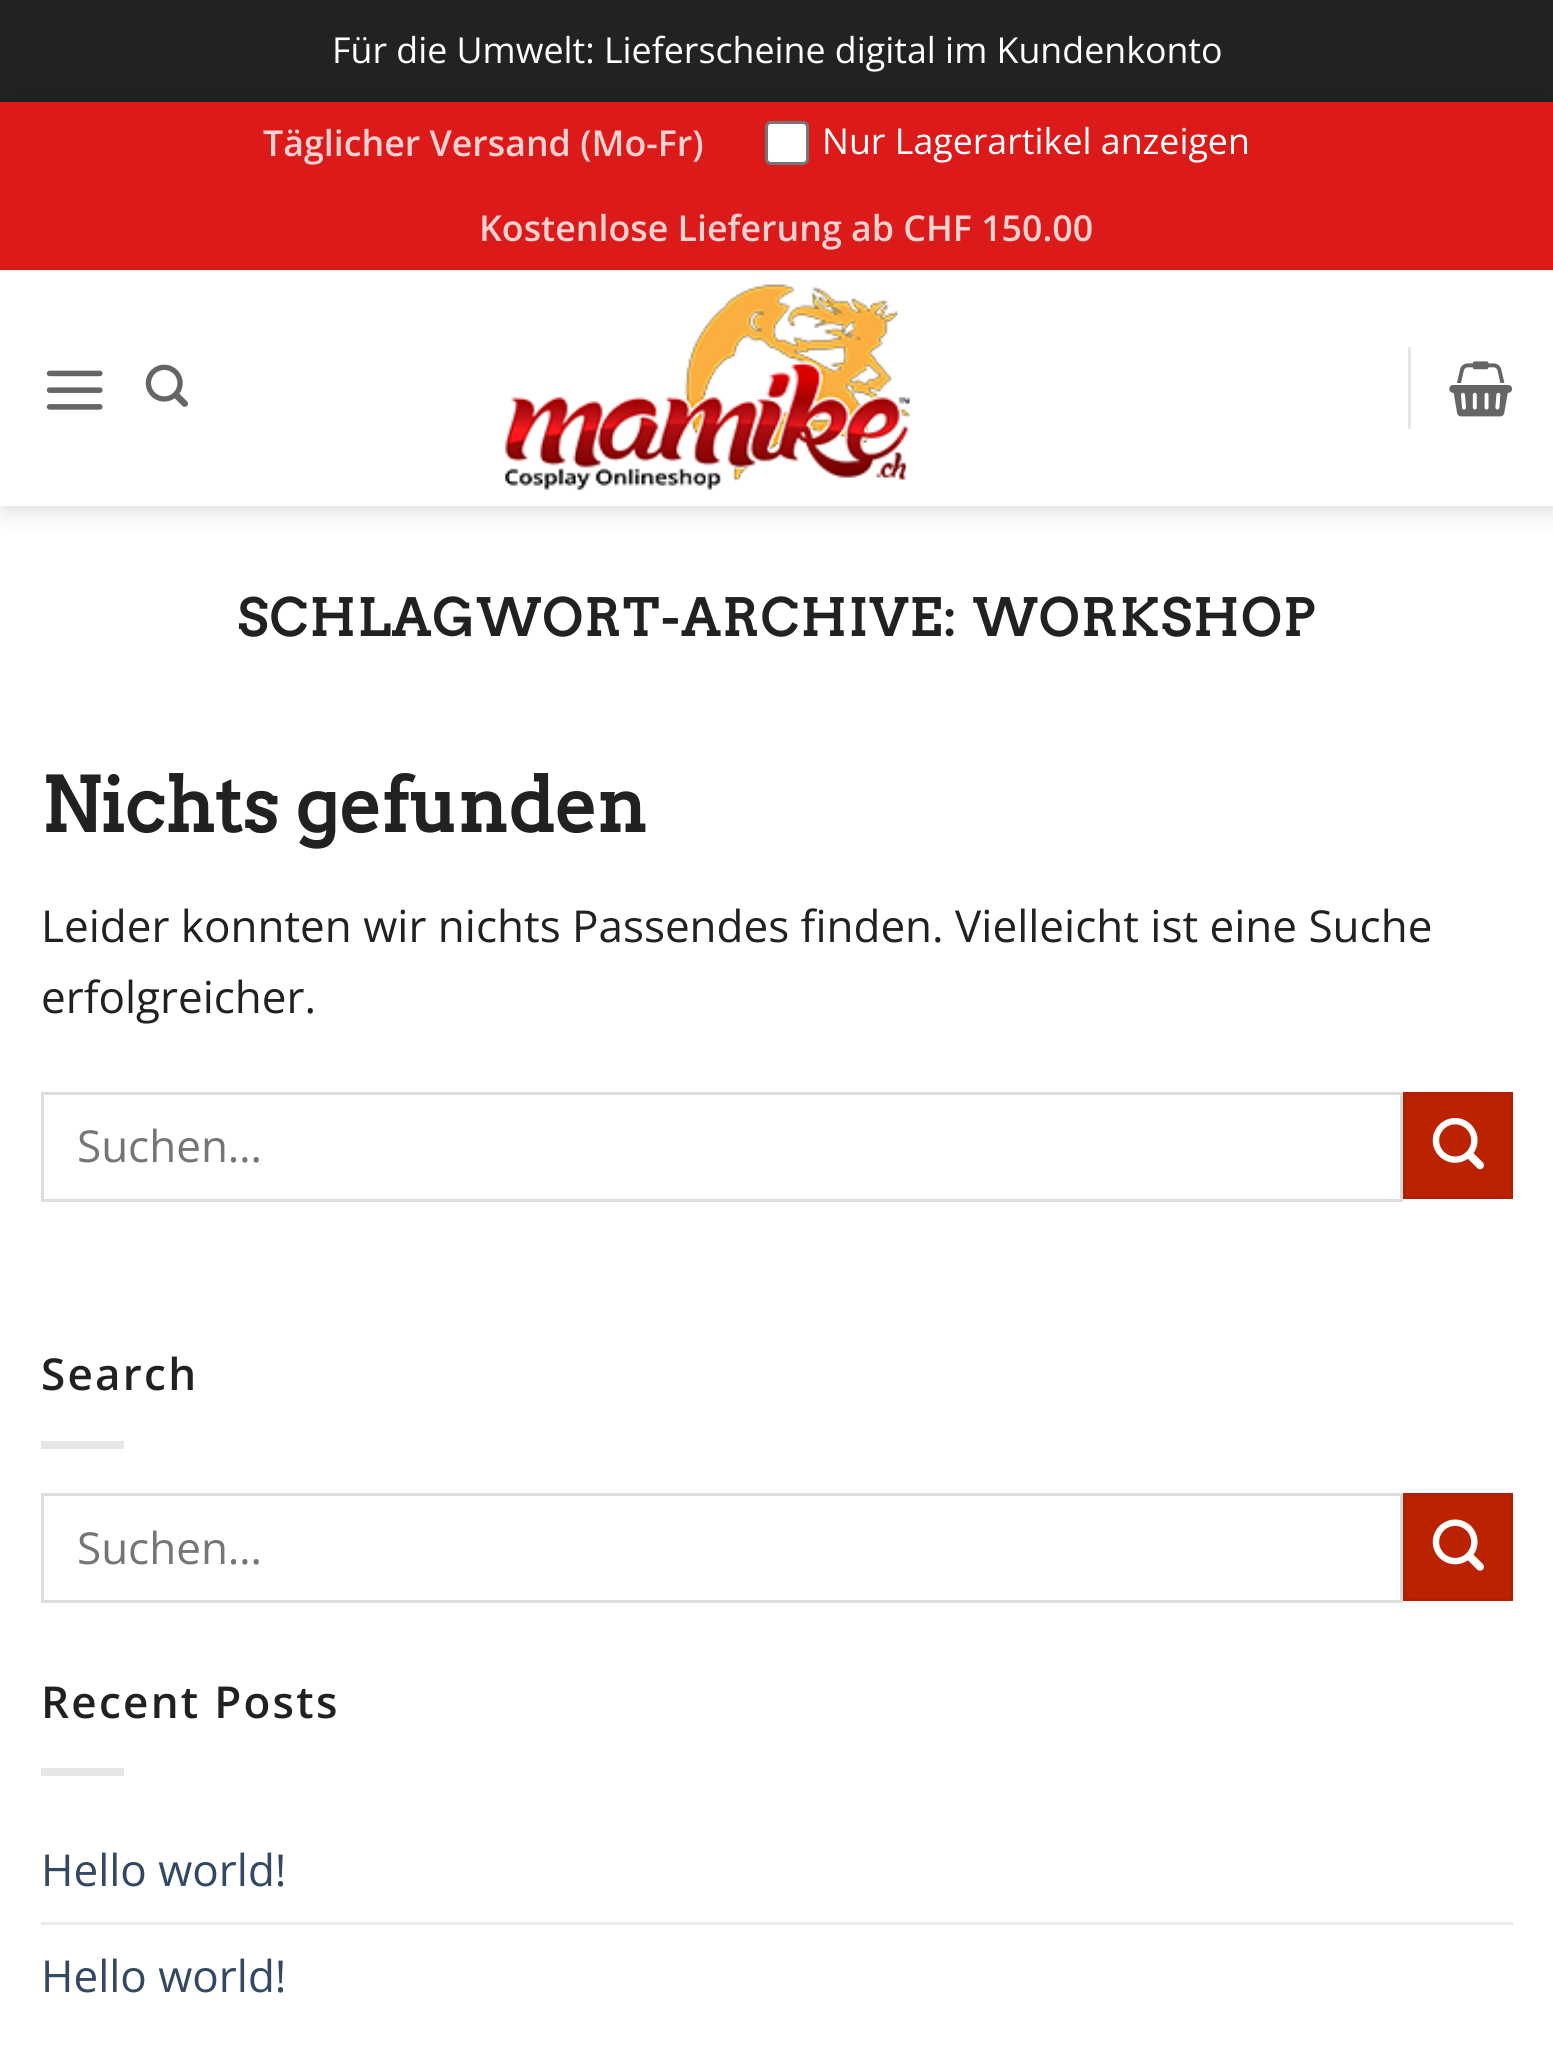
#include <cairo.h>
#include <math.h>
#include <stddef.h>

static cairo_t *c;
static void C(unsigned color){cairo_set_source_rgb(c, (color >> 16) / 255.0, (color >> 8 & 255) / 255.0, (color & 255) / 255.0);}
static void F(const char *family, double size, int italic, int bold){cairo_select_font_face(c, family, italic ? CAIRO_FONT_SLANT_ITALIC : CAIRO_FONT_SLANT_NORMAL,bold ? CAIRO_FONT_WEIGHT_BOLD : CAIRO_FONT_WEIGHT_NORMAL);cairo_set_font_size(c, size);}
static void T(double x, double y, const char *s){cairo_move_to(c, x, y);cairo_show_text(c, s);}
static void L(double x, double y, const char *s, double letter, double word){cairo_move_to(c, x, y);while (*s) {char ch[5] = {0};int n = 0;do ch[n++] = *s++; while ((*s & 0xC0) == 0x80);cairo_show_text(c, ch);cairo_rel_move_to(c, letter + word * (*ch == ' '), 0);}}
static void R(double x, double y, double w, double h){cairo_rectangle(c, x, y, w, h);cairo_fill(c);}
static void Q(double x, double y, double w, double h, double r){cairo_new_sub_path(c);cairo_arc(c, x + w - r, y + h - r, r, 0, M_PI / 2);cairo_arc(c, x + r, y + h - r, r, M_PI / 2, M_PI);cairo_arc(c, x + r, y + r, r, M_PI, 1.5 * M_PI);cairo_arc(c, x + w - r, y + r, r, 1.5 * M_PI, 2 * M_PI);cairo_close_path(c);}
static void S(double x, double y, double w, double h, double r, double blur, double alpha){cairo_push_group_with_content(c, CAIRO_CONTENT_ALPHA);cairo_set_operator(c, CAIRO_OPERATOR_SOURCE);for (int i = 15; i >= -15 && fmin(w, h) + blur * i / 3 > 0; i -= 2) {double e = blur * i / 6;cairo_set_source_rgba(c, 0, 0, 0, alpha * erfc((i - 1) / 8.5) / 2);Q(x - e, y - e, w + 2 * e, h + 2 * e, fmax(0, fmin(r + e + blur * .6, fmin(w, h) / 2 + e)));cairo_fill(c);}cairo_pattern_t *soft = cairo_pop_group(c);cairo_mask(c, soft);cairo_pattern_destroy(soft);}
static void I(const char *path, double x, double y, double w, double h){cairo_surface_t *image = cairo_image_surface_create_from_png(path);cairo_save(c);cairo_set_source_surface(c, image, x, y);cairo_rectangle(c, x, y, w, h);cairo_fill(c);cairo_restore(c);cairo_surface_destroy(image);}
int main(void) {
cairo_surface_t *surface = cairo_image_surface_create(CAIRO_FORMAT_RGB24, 1553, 2057);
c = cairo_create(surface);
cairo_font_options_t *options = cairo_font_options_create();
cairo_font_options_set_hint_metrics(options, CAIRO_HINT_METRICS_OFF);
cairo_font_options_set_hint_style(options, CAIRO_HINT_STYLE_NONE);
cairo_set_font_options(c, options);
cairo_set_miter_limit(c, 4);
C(0xffffff);
cairo_paint(c);
C(0x222222);
R(0,0,1553,102);
F("Open Sans",35.75,0,0);
C(0xffffff);
T(332,63,"Für die Umwelt: Lieferscheine digital im Kundenkonto");
cairo_save(c);
cairo_set_fill_rule(c,CAIRO_FILL_RULE_EVEN_ODD);
cairo_new_path(c);
cairo_move_to(c,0,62);
cairo_line_to(c,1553,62);
cairo_line_to(c,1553,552);
cairo_line_to(c,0,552);
cairo_close_path(c);
cairo_move_to(c,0,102);
cairo_line_to(c,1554,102);
cairo_line_to(c,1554,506);
cairo_line_to(c,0,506);
cairo_close_path(c);
cairo_clip(c);
C(0x000000);
S(3,105,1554,404,0,14,.15);
cairo_restore(c);
C(0xdd1a1a);
R(0,102,1553,168);
F("Open Sans SemiBold",35.75,0,0);
C(0xf8d1d1);
T(263,156,"Täglicher Versand (Mo-Fr)");
C(0xffffff);
Q(766.5,122.5,41,41,4.5);
cairo_fill_preserve(c);
C(0x767676);
cairo_set_line_width(c,3);
cairo_stroke(c);
F("Open Sans",35.75,0,0);
C(0xffffff);
T(822,154,"Nur Lagerartikel anzeigen");
F("Open Sans SemiBold",35.75,0,0);
C(0xf8d1d1);
T(479,241,"Kostenlose Lieferung ab CHF 150.00");
I("1.png",46,370,57,40);
I("2.png",145,364,43,43);
I("3.png",504,284,407,207);
C(0xe6e6e6);
R(1408,347,3,82);
I("4.png",1449,361,64,56);
F("Arvo",50.6,0,1);
C(0x212121);
L(237,636,"SCHLAGWORT-ARCHIVE:",2.5,0);
L(973,636,"WORKSHOP",2.5,0);
F("Arvo",74.75,0,1);
T(41,832,"Nichts gefunden");
F("Open Sans",44,0,0);
T(41,942,"Leider konnten wir nichts Passendes finden. Vielleicht ist eine Suche");
T(41,1013,"erfolgreicher.");
cairo_rectangle(c,42.5,1093.5,1359,107);
C(0xdddddd);
cairo_stroke(c);
C(0x757575);
T(77,1162,"Suchen…");
C(0xbb2200);
cairo_rectangle(c,1404.5,1093.5,107,104);
cairo_fill_preserve(c);
C(0xb22000);
cairo_stroke(c);
I("5.png",1432,1118,52,52);
F("Open Sans SemiBold",44,0,0);
C(0x212121);
L(41,1390,"Search",2.25,0);
C(0xe6e6e6);
R(41,1441,83,8);
cairo_rectangle(c,42.5,1494.5,1359,107);
C(0xdddddd);
cairo_stroke(c);
F("Open Sans",44,0,0);
C(0x757575);
T(77,1564,"Suchen…");
C(0xbb2200);
cairo_rectangle(c,1404.5,1494.5,107,105);
cairo_fill_preserve(c);
C(0xb22000);
cairo_stroke(c);
I("6.png",1432,1519,52,52);
F("Open Sans SemiBold",44,0,0);
C(0x212121);
L(41,1718,"Recent Posts",2.25,0);
C(0xe6e6e6);
R(41,1768,83,8);
F("Open Sans",44,0,0);
C(0x334862);
T(41,1886,"Hello world!");
C(0xececec);
R(41,1922,1472,3);
C(0x334862);
T(41,1992,"Hello world!");
cairo_surface_write_to_png(surface, "o.png");
cairo_font_options_destroy(options);
cairo_destroy(c);
cairo_surface_destroy(surface);
return 0;
}
